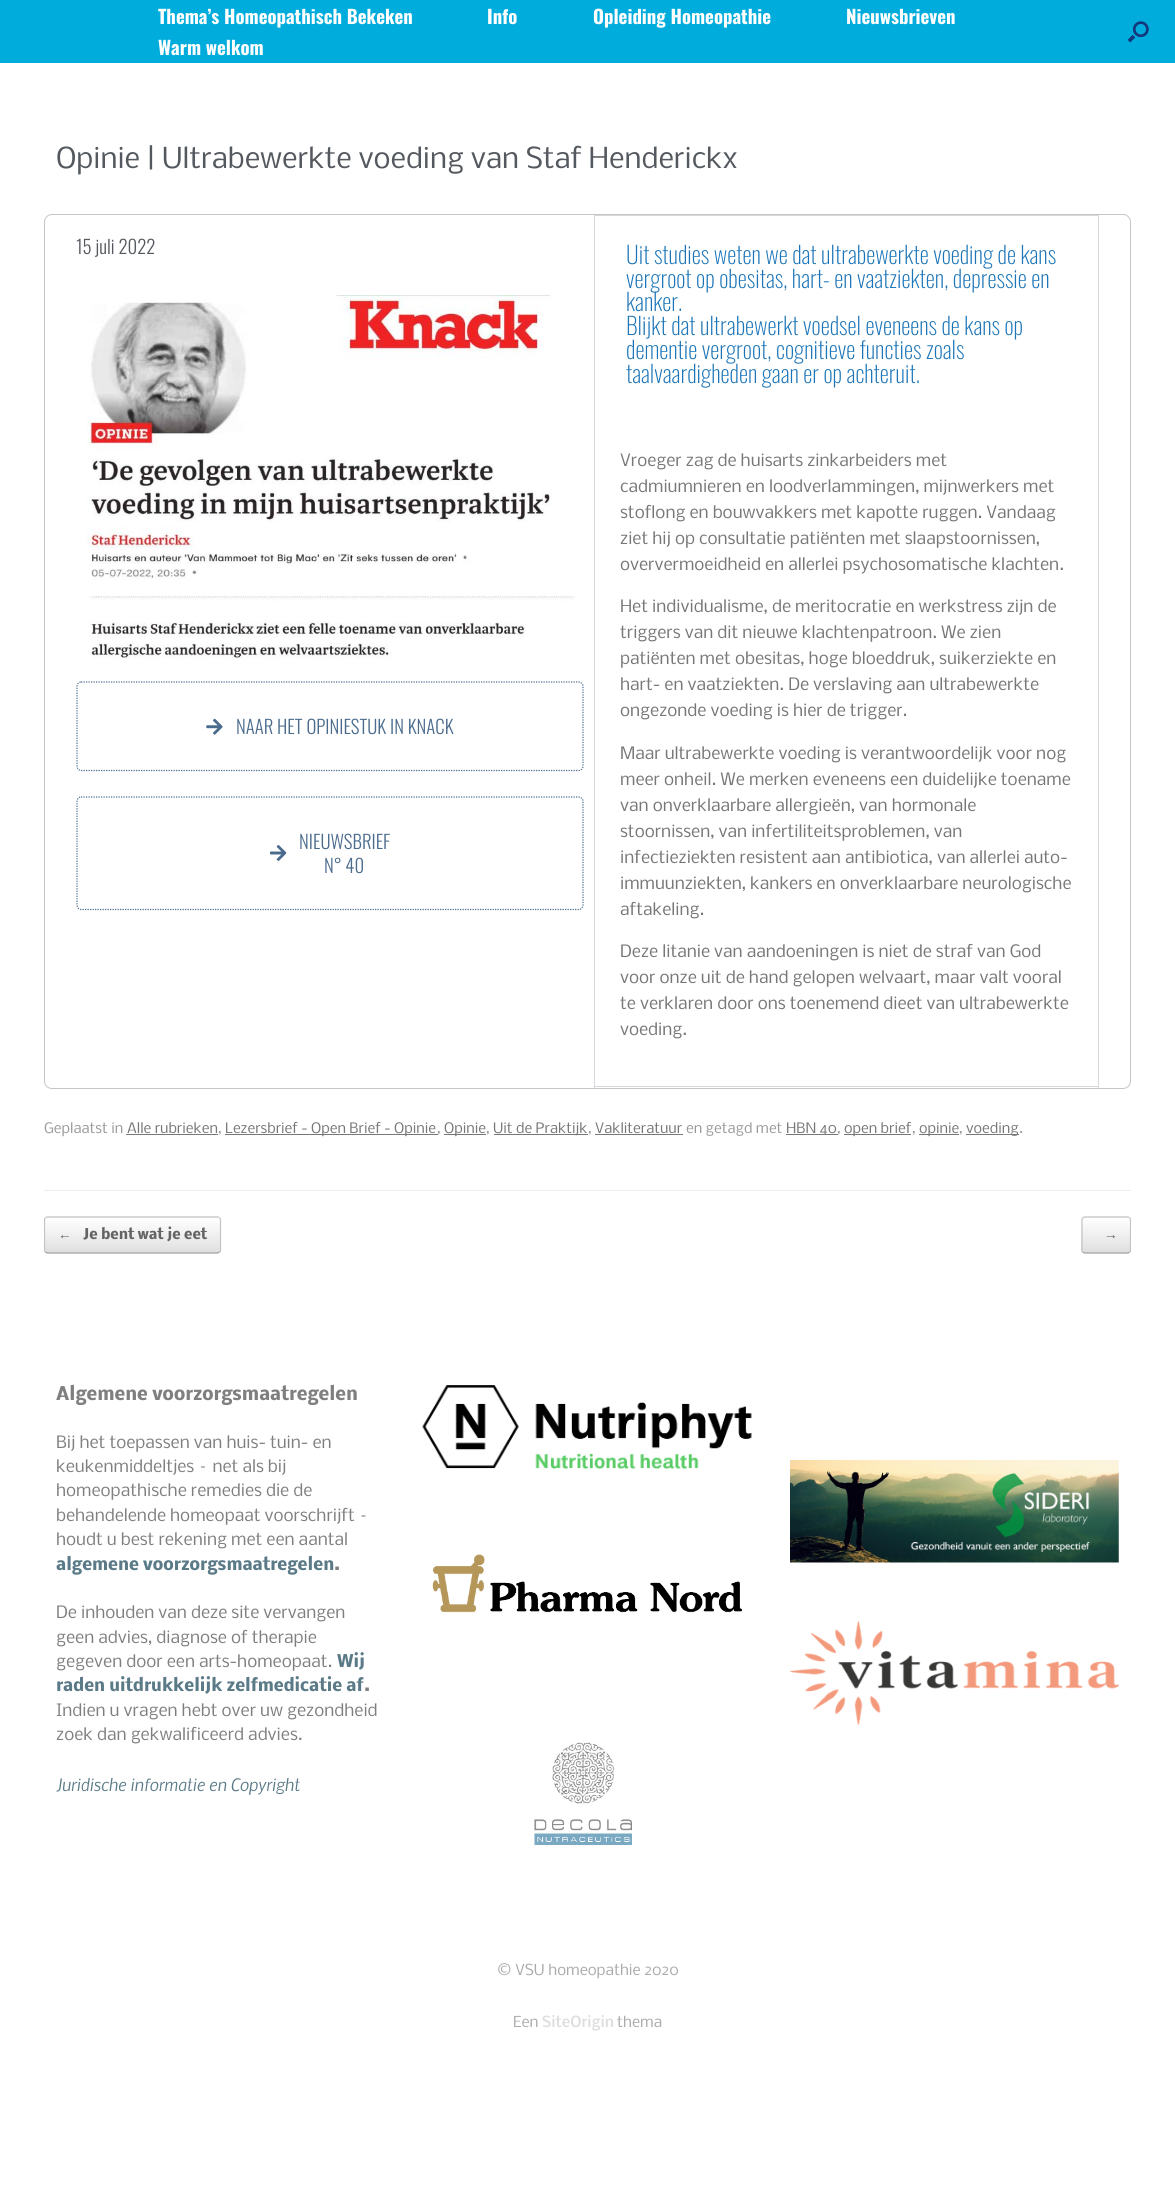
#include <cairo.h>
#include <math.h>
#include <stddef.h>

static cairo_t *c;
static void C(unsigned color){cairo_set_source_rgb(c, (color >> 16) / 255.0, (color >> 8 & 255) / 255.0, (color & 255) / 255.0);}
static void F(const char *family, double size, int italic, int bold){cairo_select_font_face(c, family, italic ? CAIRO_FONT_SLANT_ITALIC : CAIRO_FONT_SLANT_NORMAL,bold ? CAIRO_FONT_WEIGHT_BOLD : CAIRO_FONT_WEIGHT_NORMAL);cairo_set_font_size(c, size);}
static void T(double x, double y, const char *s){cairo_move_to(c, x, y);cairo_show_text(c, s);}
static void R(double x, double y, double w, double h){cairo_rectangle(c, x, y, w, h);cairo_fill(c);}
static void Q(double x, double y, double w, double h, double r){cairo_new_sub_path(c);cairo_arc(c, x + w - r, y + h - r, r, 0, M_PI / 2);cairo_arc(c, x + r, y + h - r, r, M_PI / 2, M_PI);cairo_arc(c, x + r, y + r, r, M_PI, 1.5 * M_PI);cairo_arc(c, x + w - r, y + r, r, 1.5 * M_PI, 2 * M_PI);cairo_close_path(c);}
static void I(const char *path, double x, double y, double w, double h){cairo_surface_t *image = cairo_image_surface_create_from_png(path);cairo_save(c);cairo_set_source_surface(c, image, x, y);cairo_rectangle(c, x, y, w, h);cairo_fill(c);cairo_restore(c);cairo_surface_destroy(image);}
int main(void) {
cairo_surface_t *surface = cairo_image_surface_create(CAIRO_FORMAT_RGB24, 1175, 2201);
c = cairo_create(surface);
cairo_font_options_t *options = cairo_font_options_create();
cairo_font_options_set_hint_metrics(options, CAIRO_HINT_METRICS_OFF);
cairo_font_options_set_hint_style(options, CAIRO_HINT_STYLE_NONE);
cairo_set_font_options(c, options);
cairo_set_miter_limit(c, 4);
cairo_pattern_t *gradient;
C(0xffffff);
cairo_paint(c);
C(0x00acdc);
R(0,0,1175,63);
F("Oswald",18.75,0,1);
C(0xffffff);
T(158,24,"Thema’s Homeopathisch Bekeken");
T(487,24,"Info");
T(593,24,"Opleiding Homeopathie");
T(846,24,"Nieuwsbrieven");
T(158,55,"Warm welkom");
I("1.png",1127,21,22,22);
C(0xeeeeee);
R(44,1190,1087,1);
F("Nobile",27.5,0,0);
C(0x54595f);
T(56,168,"Opinie | Ultrabewerkte voeding van Staf Henderickx");
Q(44.5,214.5,1086,874,7.5);
C(0xc6c6c6);
cairo_set_line_width(c,1);
cairo_stroke(c);
F("Oswald Light",18.75,0,0);
C(0x54595f);
T(76,254,"15 juli 2022");
I("2.png",86,295,489,364);
cairo_new_path(c);
cairo_move_to(c,81,682);
cairo_line_to(c,579,682);
cairo_curve_to(c,581,682,583,684,583,686);
cairo_line_to(c,583,766);
cairo_curve_to(c,583,768.5,581,770.5,579,770.5);
cairo_line_to(c,81,770.5);
cairo_curve_to(c,79,770.5,77,768.5,77,766);
cairo_line_to(c,77,686);
cairo_curve_to(c,77,684,79,682,81,682);
cairo_close_path(c);
C(0x4a6b8c);
cairo_set_line_width(c,1.2);
cairo_set_dash(c,(double[]){1.25,1.25},2,0);
cairo_stroke(c);
I("3.png",206,718,17,17);
T(236,734,"NAAR HET OPINIESTUK IN KNACK");
cairo_new_path(c);
cairo_move_to(c,81,797);
cairo_line_to(c,579,797);
cairo_curve_to(c,581,797,583,799,583,801);
cairo_line_to(c,583,905);
cairo_curve_to(c,583,907.5,581,909.5,579,909.5);
cairo_line_to(c,81,909.5);
cairo_curve_to(c,79,909.5,77,907.5,77,905);
cairo_line_to(c,77,801);
cairo_curve_to(c,77,799,79,797,81,797);
cairo_close_path(c);
cairo_stroke(c);
I("4.png",270,845,17,16);
T(299,849,"NIEUWSBRIEF");
T(324,873,"N° 40");
C(0xd5d8dc);
R(594,215,505,1);
R(1098,215,1,194);
R(594,215,1,194);
F("Oswald ExtraLight",23.75,0,0);
C(0x1b75b8);
T(626,264,"Uit studies weten we dat ultrabewerkte voeding de kans");
T(626,288,"vergroot op obesitas, hart- en vaatziekten, depressie en");
T(626,311,"kanker.");
T(626,335,"Blijkt dat ultrabewerkt voedsel eveneens de kans op");
T(626,359,"dementie vergroot, cognitieve functies zoals");
T(626,383,"taalvaardigheden gaan er op achteruit.");
C(0xd5d8dc);
R(1098,409,1,679);
R(594,1086,505,1);
R(594,409,1,679);
F("Nobile",16.25,0,0);
C(0x777777);
T(620,466,"Vroeger zag de huisarts zinkarbeiders met");
T(620,492,"cadmiumnieren en loodverlammingen, mijnwerkers met");
T(620,518,"stoflong en bouwvakkers met kapotte ruggen. Vandaag");
T(620,544,"ziet hij op consultatie patiënten met slaapstoornissen,");
T(620,570,"oververmoeidheid en allerlei psychosomatische klachten.");
T(620,612,"Het individualisme, de meritocratie en werkstress zijn de");
T(620,638,"triggers van dit nieuwe klachtenpatroon. We zien");
T(620,664,"patiënten met obesitas, hoge bloeddruk, suikerziekte en");
T(620,690,"hart- en vaatziekten. De verslaving aan ultrabewerkte");
T(620,716,"ongezonde voeding is hier de trigger.");
T(620,759,"Maar ultrabewerkte voeding is verantwoordelijk voor nog");
T(620,785,"meer onheil. We merken eveneens een duidelijke toename");
T(620,811,"van onverklaarbare allergieën, van hormonale");
T(620,837,"stoornissen, van infertiliteitsproblemen, van");
T(620,863,"infectieziekten resistent aan antibiotica, van allerlei auto-");
T(620,889,"immuunziekten, kankers en onverklaarbare neurologische");
T(620,915,"aftakeling.");
T(620,957,"Deze litanie van aandoeningen is niet de straf van God");
T(620,983,"voor onze uit de hand gelopen welvaart, maar valt vooral");
T(620,1009,"te verklaren door ons toenemend dieet van ultrabewerkte");
T(620,1035,"voeding.");
F("Nobile",13.75,0,0);
C(0x999999);
T(44,1133,"Geplaatst in");
C(0x777777);
T(127,1133,"Alle rubrieken");
R(126,1134,92,1);
C(0x999999);
T(218,1133,",");
C(0x777777);
R(225,1134,213,1);
T(225,1133,"Lezersbrief - Open Brief - Opinie");
C(0x999999);
T(437,1133,",");
C(0x777777);
R(444,1134,42,1);
T(444,1133,"Opinie");
C(0x999999);
T(486,1133,",");
C(0x777777);
R(494,1134,94,1);
T(493,1133,"Uit de Praktijk");
C(0x999999);
T(588,1133,",");
C(0x777777);
T(595,1133,"Vakliteratuur");
R(595,1134,88,1);
C(0x999999);
T(686,1133,"en getagd met");
C(0x777777);
R(786,1134,52,1);
T(786,1133,"HBN 40");
C(0x999999);
T(837,1133,",");
C(0x777777);
R(844,1134,67,1);
T(844,1133,"open brief");
C(0x999999);
T(912,1133,",");
C(0x777777);
R(919,1134,40,1);
T(919,1133,"opinie");
C(0x999999);
T(959,1133,",");
C(0x777777);
R(966,1134,53,1);
T(966,1133,"voeding");
C(0x999999);
T(1019,1133,".");
cairo_save(c);
Q(44,1216,177,38,4);
cairo_clip(c);
gradient = cairo_pattern_create_linear(45,1218,45,1183);
cairo_pattern_add_color_stop_rgba(gradient,0,0.875,0.875,0.875,1);
cairo_pattern_add_color_stop_rgba(gradient,1,1,1,1,1);
cairo_set_source(c,gradient);
cairo_pattern_destroy(gradient);
R(44,1216,177,2);
gradient = cairo_pattern_create_linear(45,1253,45,1218);
cairo_pattern_add_color_stop_rgba(gradient,0,0.875,0.875,0.875,1);
cairo_pattern_add_color_stop_rgba(gradient,1,1,1,1,1);
cairo_set_source(c,gradient);
cairo_pattern_destroy(gradient);
R(44,1218,177,35);
cairo_restore(c);
cairo_new_path(c);
cairo_move_to(c,45.5,1218);
cairo_line_to(c,47.5,1217);
cairo_line_to(c,217.5,1217);
cairo_line_to(c,219.5,1218);
C(0xd2d2d2);
cairo_set_dash(c,NULL,0,0);
cairo_stroke(c);
cairo_new_path(c);
cairo_move_to(c,219.5,1218);
cairo_curve_to(c,220.5,1218.5,220.5,1219,220.5,1220);
cairo_line_to(c,220.5,1250);
cairo_curve_to(c,220.5,1251,220.5,1251.5,219.5,1252);
C(0xc3c3c3);
cairo_stroke(c);
cairo_new_path(c);
cairo_move_to(c,219.5,1252);
cairo_line_to(c,217.5,1253);
cairo_line_to(c,47.5,1253);
cairo_line_to(c,45.5,1252);
C(0x9f9f9f);
cairo_stroke(c);
cairo_save(c);
cairo_rectangle(c,44,1216,1087,38);
cairo_clip(c);
cairo_new_path(c);
cairo_move_to(c,45.5,1252);
cairo_curve_to(c,44.5,1251.5,44.5,1251,44.5,1250);
cairo_line_to(c,44.5,1220);
cairo_curve_to(c,44.5,1219,44.5,1218.5,45.5,1218);
C(0xc3c3c3);
cairo_stroke(c);
cairo_restore(c);
F("Liberation Sans",13.75,0,1);
C(0x646464);
T(58,1239,"←");
F("Nobile",13.75,0,1);
T(83,1239,"Je bent wat je eet");
cairo_save(c);
Q(1081,1216,50,38,4);
cairo_clip(c);
gradient = cairo_pattern_create_linear(1083,1218,1083,1183);
cairo_pattern_add_color_stop_rgba(gradient,0,0.875,0.875,0.875,1);
cairo_pattern_add_color_stop_rgba(gradient,1,1,1,1,1);
cairo_set_source(c,gradient);
cairo_pattern_destroy(gradient);
R(1081,1216,50,2);
gradient = cairo_pattern_create_linear(1083,1253,1083,1218);
cairo_pattern_add_color_stop_rgba(gradient,0,0.875,0.875,0.875,1);
cairo_pattern_add_color_stop_rgba(gradient,1,1,1,1,1);
cairo_set_source(c,gradient);
cairo_pattern_destroy(gradient);
R(1081,1218,50,35);
cairo_restore(c);
cairo_new_path(c);
cairo_move_to(c,1083,1218);
cairo_line_to(c,1084.5,1217);
cairo_line_to(c,1128,1217);
cairo_line_to(c,1129.5,1218);
C(0xd2d2d2);
cairo_stroke(c);
cairo_save(c);
cairo_rectangle(c,44,1216,1087,38);
cairo_clip(c);
cairo_new_path(c);
cairo_move_to(c,1129.5,1218);
cairo_curve_to(c,1130.5,1218.5,1130.5,1219,1130.5,1220);
cairo_line_to(c,1130.5,1250);
cairo_curve_to(c,1130.5,1251,1130.5,1251.5,1129.5,1252);
C(0xc3c3c3);
cairo_stroke(c);
cairo_restore(c);
cairo_new_path(c);
cairo_move_to(c,1129.5,1252);
cairo_line_to(c,1128,1253);
cairo_line_to(c,1084.5,1253);
cairo_line_to(c,1083,1252);
C(0x9f9f9f);
cairo_stroke(c);
cairo_new_path(c);
cairo_move_to(c,1083,1252);
cairo_curve_to(c,1082,1251.5,1082,1251,1082,1250);
cairo_line_to(c,1082,1220);
cairo_curve_to(c,1082,1219,1082,1218.5,1083,1218);
C(0xc3c3c3);
cairo_stroke(c);
F("Liberation Sans",13.75,0,1);
C(0x646464);
T(1104,1239,"→");
F("Nobile",17.5,0,1);
C(0x7f7f7f);
T(56,1400,"Algemene voorzorgsmaatregelen");
F("Nobile",16.25,0,0);
T(56,1448,"Bij het toepassen van huis- tuin- en");
T(56,1472,"keukenmiddeltjes – net als bij");
T(56,1496,"homeopathische remedies die de");
T(56,1521,"behandelende homeopaat voorschrijft –");
T(56,1545,"houdt u best rekening met een aantal");
F("Nobile",16.25,0,1);
C(0x5a7a87);
T(56,1570,"algemene voorzorgsmaatregelen");
C(0x7f7f7f);
T(334,1570,".");
F("Nobile",16.25,0,0);
T(56,1618,"De inhouden van deze site vervangen");
T(56,1643,"geen advies, diagnose of therapie");
T(56,1667,"gegeven door een arts-homeopaat.");
F("Nobile",16.25,0,1);
C(0x5a7a87);
T(337,1667,"Wij");
T(56,1691,"raden uitdrukkelijk zelfmedicatie af");
C(0x7f7f7f);
T(364,1691,".");
F("Nobile",16.25,0,0);
T(56,1716,"Indien u vragen hebt over uw gezondheid");
T(56,1740,"zoek dan gekwalificeerd advies.");
F("Nobile",16.25,1,0);
C(0x5a7a87);
T(56,1791,"Juridische informatie en Copyright");
I("5.png",422,1385,330,85);
I("6.png",432,1554,310,59);
I("7.png",534,1742,98,103);
I("8.png",790,1460,329,103);
I("9.png",790,1621,329,104);
F("Nobile",14.4,0,0);
C(0xaaaaaa);
T(497,1975,"© VSU homeopathie 2020");
T(513,2027,"Een");
F("Nobile Medium",14.4,0,0);
C(0xdddddd);
T(542,2027,"SiteOrigin");
F("Nobile",14.4,0,0);
C(0xaaaaaa);
T(617,2027,"thema");
cairo_surface_write_to_png(surface, "o.png");
cairo_font_options_destroy(options);
cairo_destroy(c);
cairo_surface_destroy(surface);
return 0;
}
